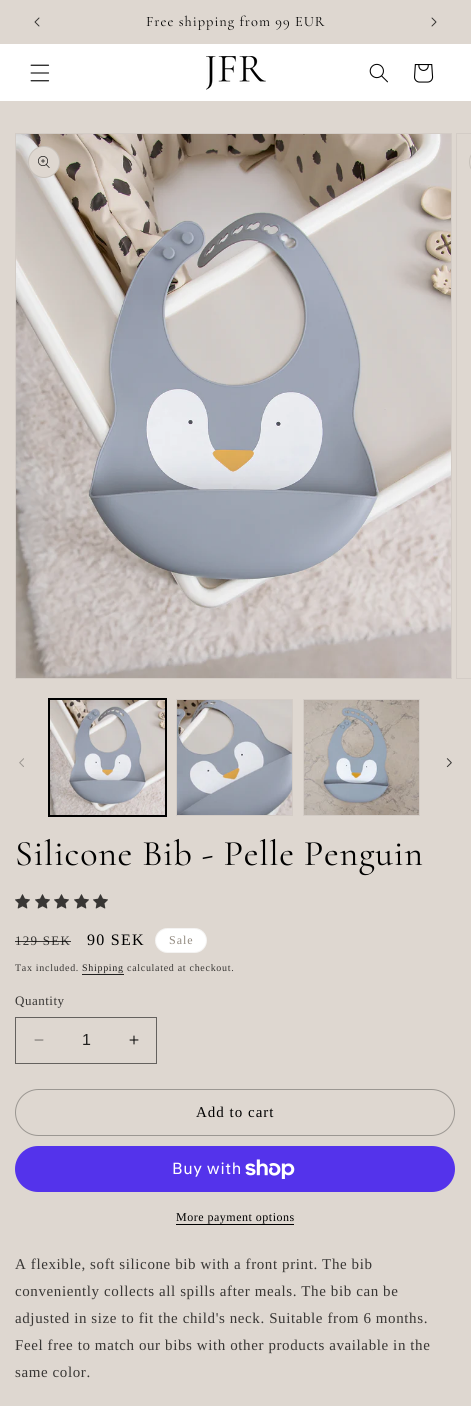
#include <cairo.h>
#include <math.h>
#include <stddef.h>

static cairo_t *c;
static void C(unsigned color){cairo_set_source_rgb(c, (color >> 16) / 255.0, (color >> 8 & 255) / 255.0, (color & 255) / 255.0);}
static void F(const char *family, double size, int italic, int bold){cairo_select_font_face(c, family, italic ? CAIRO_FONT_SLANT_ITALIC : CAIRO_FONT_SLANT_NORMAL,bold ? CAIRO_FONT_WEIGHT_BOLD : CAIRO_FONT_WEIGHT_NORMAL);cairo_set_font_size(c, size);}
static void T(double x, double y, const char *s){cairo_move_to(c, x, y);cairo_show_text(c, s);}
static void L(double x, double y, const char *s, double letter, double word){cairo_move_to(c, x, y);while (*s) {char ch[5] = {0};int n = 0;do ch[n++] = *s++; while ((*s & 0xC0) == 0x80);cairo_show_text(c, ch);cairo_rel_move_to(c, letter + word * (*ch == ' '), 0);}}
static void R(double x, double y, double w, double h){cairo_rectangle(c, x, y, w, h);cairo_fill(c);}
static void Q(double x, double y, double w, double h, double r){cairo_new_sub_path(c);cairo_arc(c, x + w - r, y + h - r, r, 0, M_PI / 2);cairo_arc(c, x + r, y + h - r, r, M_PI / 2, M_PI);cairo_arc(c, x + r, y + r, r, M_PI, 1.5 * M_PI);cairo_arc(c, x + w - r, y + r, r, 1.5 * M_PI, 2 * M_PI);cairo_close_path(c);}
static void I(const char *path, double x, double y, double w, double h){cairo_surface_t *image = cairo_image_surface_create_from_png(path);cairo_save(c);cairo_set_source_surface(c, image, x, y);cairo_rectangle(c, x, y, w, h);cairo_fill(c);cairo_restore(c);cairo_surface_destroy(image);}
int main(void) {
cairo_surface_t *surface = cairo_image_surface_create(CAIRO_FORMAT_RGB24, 471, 1406);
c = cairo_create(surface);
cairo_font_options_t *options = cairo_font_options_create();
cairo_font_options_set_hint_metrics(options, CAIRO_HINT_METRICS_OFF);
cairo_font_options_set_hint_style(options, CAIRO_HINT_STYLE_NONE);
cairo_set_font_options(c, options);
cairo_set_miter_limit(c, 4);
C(0xded7d0);
cairo_paint(c);
I("1.png",34,17,6,10);
F("Cormorant",14.4,0,0);
C(0x000000);
L(146,26,"Free shipping from 99 EUR",1,0);
I("2.png",431,17,6,10);
C(0xffffff);
R(0,44,471,57);
I("3.png",30,64,20,18);
I("4.png",206,56,60,34);
I("5.png",369,63,19,20);
I("6.png",414,64,20,19);
cairo_rectangle(c,15.5,133.5,436,545);
C(0xd3ccc6);
cairo_set_line_width(c,1);
cairo_stroke(c);
I("7.png",16,134,435,544);
C(0xded7d0);
cairo_arc(c,44,162,16,0,2 * M_PI);
cairo_fill(c);
cairo_arc(c,44,162,15.5,0,2 * M_PI);
cairo_set_source_rgba(c,0,0,0,0.1);
cairo_stroke(c);
I("8.png",38,156,12,12);
cairo_rectangle(c,456.5,133.5,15,545);
C(0xd3ccc6);
cairo_stroke(c);
Q(469.5,146.5,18,31,15.5);
C(0xc8c2bb);
cairo_stroke(c);
I("9.png",19,758,5,9);
cairo_rectangle(c,48.5,698.5,118,118);
C(0x000000);
cairo_stroke(c);
cairo_rectangle(c,49.5,699.5,116,116);
cairo_stroke(c);
I("10.png",50,700,115,115);
cairo_rectangle(c,176.5,699.5,116,116);
C(0xd3ccc6);
cairo_stroke(c);
I("11.png",177,700,115,115);
cairo_rectangle(c,303.5,699.5,116,116);
cairo_stroke(c);
I("12.png",304,700,115,115);
I("13.png",446,758,6,10);
F("Cormorant",36,0,0);
C(0x000000);
L(15,865,"Silicone Bib - Pelle Penguin",.75,0);
I("14.png",15,894,15,15);
I("14.png",35,894,15,15);
I("14.png",54,894,15,15);
I("14.png",74,894,15,15);
I("14.png",93,894,15,15);
F("Liberation Serif",13,0,0);
C(0x383634);
L(15,945,"129 SEK",1.25,0);
cairo_set_source_rgba(c,0,0,0,0.75);
R(15,941,56,1);
F("Liberation Serif",16,0,0);
C(0x000000);
L(87,945,"90 SEK",1.25,0);
C(0xffffff);
Q(155,928,52,25,12.5);
cairo_fill(c);
Q(155.5,928.5,51,24,12);
cairo_set_source_rgba(c,0.573,0.541,0.502,0.1);
cairo_stroke(c);
F("Liberation Serif",12,0,0);
C(0x928a80);
L(169,944,"Sale",1,0);
F("Liberation Serif",10,0,0);
C(0x383634);
L(15,971,"Tax included.",.7,0);
C(0x21201f);
L(82,971,"Shipping",.7,0);
R(82,974,42,1);
C(0x383634);
L(127,971,"calculated at checkout.",.7,0);
F("Liberation Serif",13,0,0);
L(15,1005,"Quantity",.5,0);
I("15.png",34,1039,10,2);
I("16.png",129,1035,10,10);
cairo_rectangle(c,15.5,1017.5,141,46);
C(0x64615e);
cairo_stroke(c);
F("Liberation Sans",16,0,0);
C(0x21201f);
T(82,1045,"1");
Q(15.5,1089.5,439,46,23);
C(0x9b9792);
cairo_stroke(c);
F("Liberation Serif",15,0,0);
C(0x000000);
L(196,1117,"Add to cart",1,0);
C(0x5433eb);
Q(15,1146,440,46,23);
cairo_fill(c);
F("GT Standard",16,0,0);
C(0xffffff);
L(172,1174,"Buy with",.6,0);
I("17.png",245,1159,50,20);
F("Liberation Serif",12,0,0);
C(0x000000);
L(176,1221,"More payment options",.5,0);
R(176,1224,118,1);
F("Liberation Serif",15,0,0);
C(0x383634);
L(15,1269,"A flexible, soft silicone bib with a front print. The bib",.6,0);
L(15,1296,"conveniently collects all spills after meals. The bib can be",.6,0);
L(15,1323,"adjusted in size to fit the child's neck. Suitable from 6 months.",.6,0);
L(15,1350,"Feel free to match our bibs with other products available in the",.6,0);
L(15,1377,"same color.",.6,0);
cairo_surface_write_to_png(surface, "o.png");
cairo_font_options_destroy(options);
cairo_destroy(c);
cairo_surface_destroy(surface);
return 0;
}
